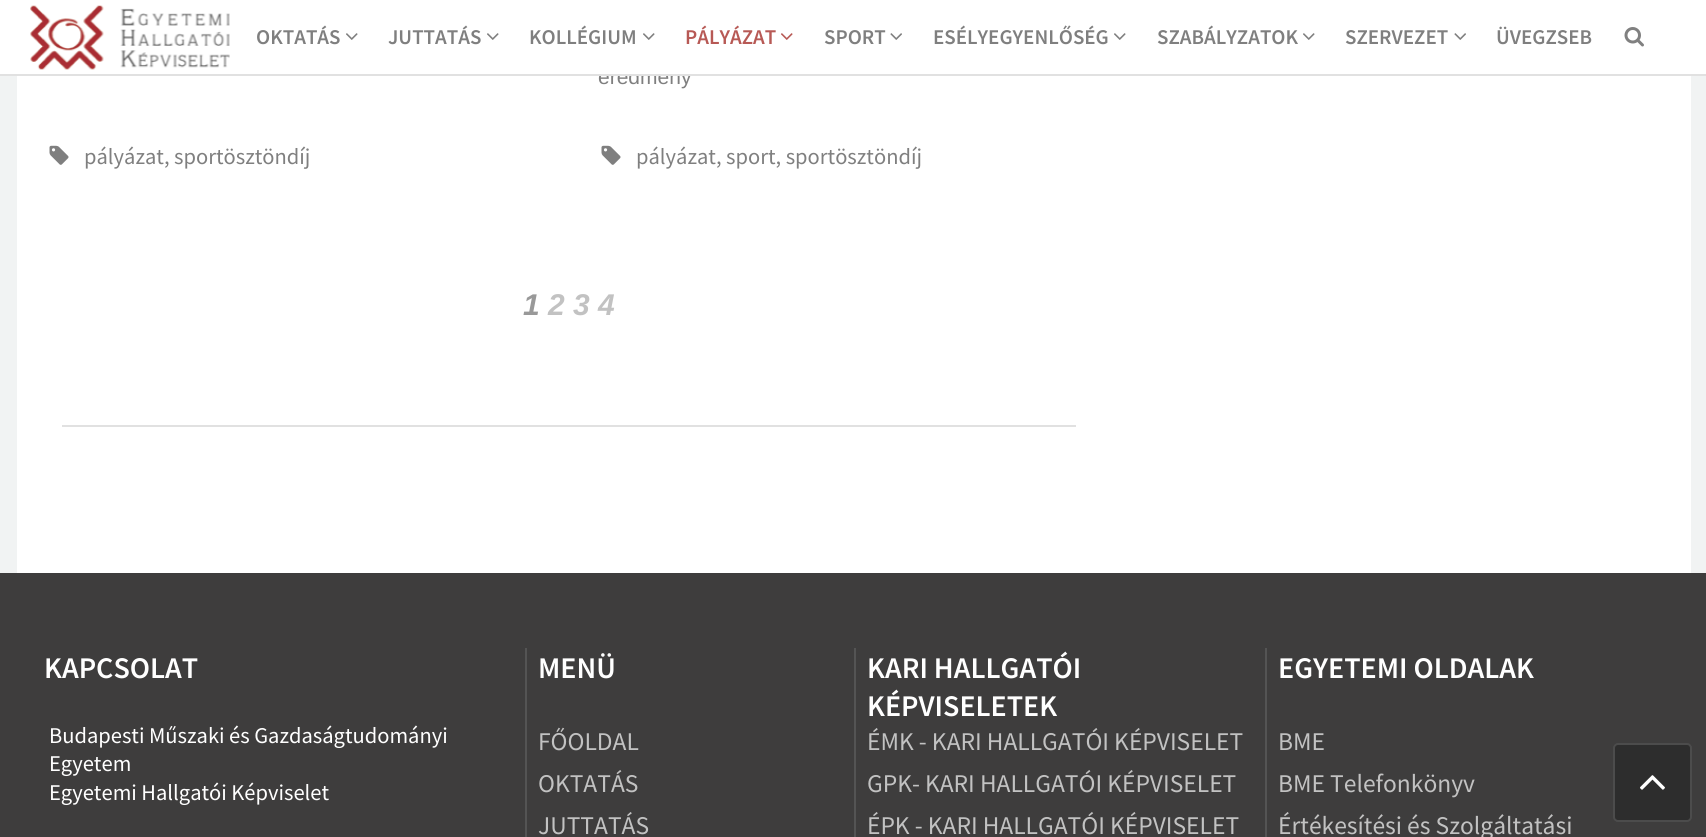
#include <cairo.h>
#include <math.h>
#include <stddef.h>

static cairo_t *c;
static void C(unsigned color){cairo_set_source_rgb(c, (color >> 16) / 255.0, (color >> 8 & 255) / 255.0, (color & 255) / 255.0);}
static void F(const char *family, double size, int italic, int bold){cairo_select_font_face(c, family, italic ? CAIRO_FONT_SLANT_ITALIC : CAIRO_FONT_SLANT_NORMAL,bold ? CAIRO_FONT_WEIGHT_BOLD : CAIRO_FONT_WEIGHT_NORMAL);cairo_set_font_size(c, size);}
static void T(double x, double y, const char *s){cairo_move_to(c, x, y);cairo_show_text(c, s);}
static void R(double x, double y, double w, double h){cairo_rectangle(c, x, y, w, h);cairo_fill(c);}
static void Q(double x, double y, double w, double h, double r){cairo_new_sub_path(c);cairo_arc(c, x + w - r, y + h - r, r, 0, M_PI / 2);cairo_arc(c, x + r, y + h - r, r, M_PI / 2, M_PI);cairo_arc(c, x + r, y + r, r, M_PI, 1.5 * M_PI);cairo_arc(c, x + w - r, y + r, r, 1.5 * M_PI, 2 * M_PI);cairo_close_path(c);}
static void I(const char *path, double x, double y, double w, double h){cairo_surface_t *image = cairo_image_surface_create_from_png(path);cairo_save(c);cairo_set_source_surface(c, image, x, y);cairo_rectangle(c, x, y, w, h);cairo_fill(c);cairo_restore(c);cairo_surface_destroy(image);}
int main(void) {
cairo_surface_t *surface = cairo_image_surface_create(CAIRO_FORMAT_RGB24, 1706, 837);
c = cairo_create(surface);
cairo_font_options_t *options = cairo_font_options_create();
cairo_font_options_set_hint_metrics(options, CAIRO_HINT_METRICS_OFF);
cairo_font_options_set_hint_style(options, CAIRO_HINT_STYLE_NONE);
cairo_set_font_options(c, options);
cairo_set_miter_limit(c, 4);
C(0xf1f3f3);
cairo_paint(c);
C(0xffffff);
R(17,76,1674,497);
F("Liberation Sans",21,0,0);
C(0x7f7f7f);
T(598,84,"eredmény");
C(0xffffff);
R(0,0,1706,74);
C(0xe1e1e1);
R(0,74,1706,2);
I("1.png",30,5,74,65);
I("2.png",120,8,110,60);
F("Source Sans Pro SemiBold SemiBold",21,0,0);
C(0x7f7f7f);
T(256,44,"OKTATÁS");
I("3.png",346,33,12,7);
T(388,44,"JUTTATÁS");
I("3.png",487,33,12,7);
T(529,44,"KOLLÉGIUM");
I("3.png",643,33,12,7);
C(0xb75955);
T(685,44,"PÁLYÁZAT");
I("4.png",781,33,12,7);
C(0x7f7f7f);
T(824,44,"SPORT");
I("5.png",890,33,12,7);
T(933,44,"ESÉLYEGYENLŐSÉG");
I("3.png",1114,33,12,7);
T(1157,44,"SZABÁLYZATOK");
I("3.png",1303,33,12,7);
T(1345,44,"SZERVEZET");
I("5.png",1454,33,12,7);
T(1496,44,"ÜVEGZSEB");
I("6.png",1624,27,20,20);
I("7.png",49,145,20,20);
F("Source Sans Pro",22.5,0,0);
T(84,164,"pályázat, sportösztöndíj");
I("7.png",601,145,20,20);
T(636,164,"pályázat, sport, sportösztöndíj");
F("Liberation Sans",30,1,1);
C(0x999999);
T(523,315,"1");
C(0xc2c2c2);
T(548,315,"2 3 4");
C(0xe1e1e1);
R(62,425,1014,2);
C(0x3e3d3d);
R(0,573,1706,264);
F("Source Sans Pro SemiBold SemiBold",30,0,0);
C(0xffffff);
T(44,678,"KAPCSOLAT");
F("Source Sans Pro",22.5,0,0);
T(49,743,"Budapesti Műszaki és Gazdaságtudományi");
T(49,771,"Egyetem");
T(49,800,"Egyetemi Hallgatói Képviselet");
C(0x545454);
R(525,648,2,189);
F("Source Sans Pro SemiBold SemiBold",30,0,0);
C(0xffffff);
T(538,678,"MENÜ");
F("Source Sans Pro",25.5,0,0);
C(0xc2c2c2);
T(538,750,"FŐOLDAL");
T(538,792,"OKTATÁS");
T(538,834,"JUTTATÁS");
C(0x545454);
R(854,648,2,189);
F("Source Sans Pro SemiBold SemiBold",30,0,0);
C(0xffffff);
T(867,678,"KARI HALLGATÓI");
T(867,716,"KÉPVISELETEK");
F("Source Sans Pro",25.5,0,0);
C(0xc2c2c2);
T(867,750,"ÉMK - KARI HALLGATÓI KÉPVISELET");
T(867,792,"GPK- KARI HALLGATÓI KÉPVISELET");
T(867,834,"ÉPK - KARI HALLGATÓI KÉPVISELET");
C(0x545454);
R(1265,648,2,189);
F("Source Sans Pro SemiBold SemiBold",30,0,0);
C(0xffffff);
T(1278,678,"EGYETEMI OLDALAK");
F("Source Sans Pro",25.5,0,0);
C(0xc2c2c2);
T(1278,750,"BME");
T(1278,792,"BME Telefonkönyv");
T(1278,834,"Értékesítési és Szolgáltatási");
C(0x2d2d2d);
Q(1613,743,79,79,5);
cairo_fill(c);
Q(1614,744,77,77,4);
cairo_set_source_rgba(c,0.784,0.784,0.784,0.2);
cairo_stroke(c);
I("8.png",1640,775,25,15);
cairo_surface_write_to_png(surface, "o.png");
cairo_font_options_destroy(options);
cairo_destroy(c);
cairo_surface_destroy(surface);
return 0;
}
